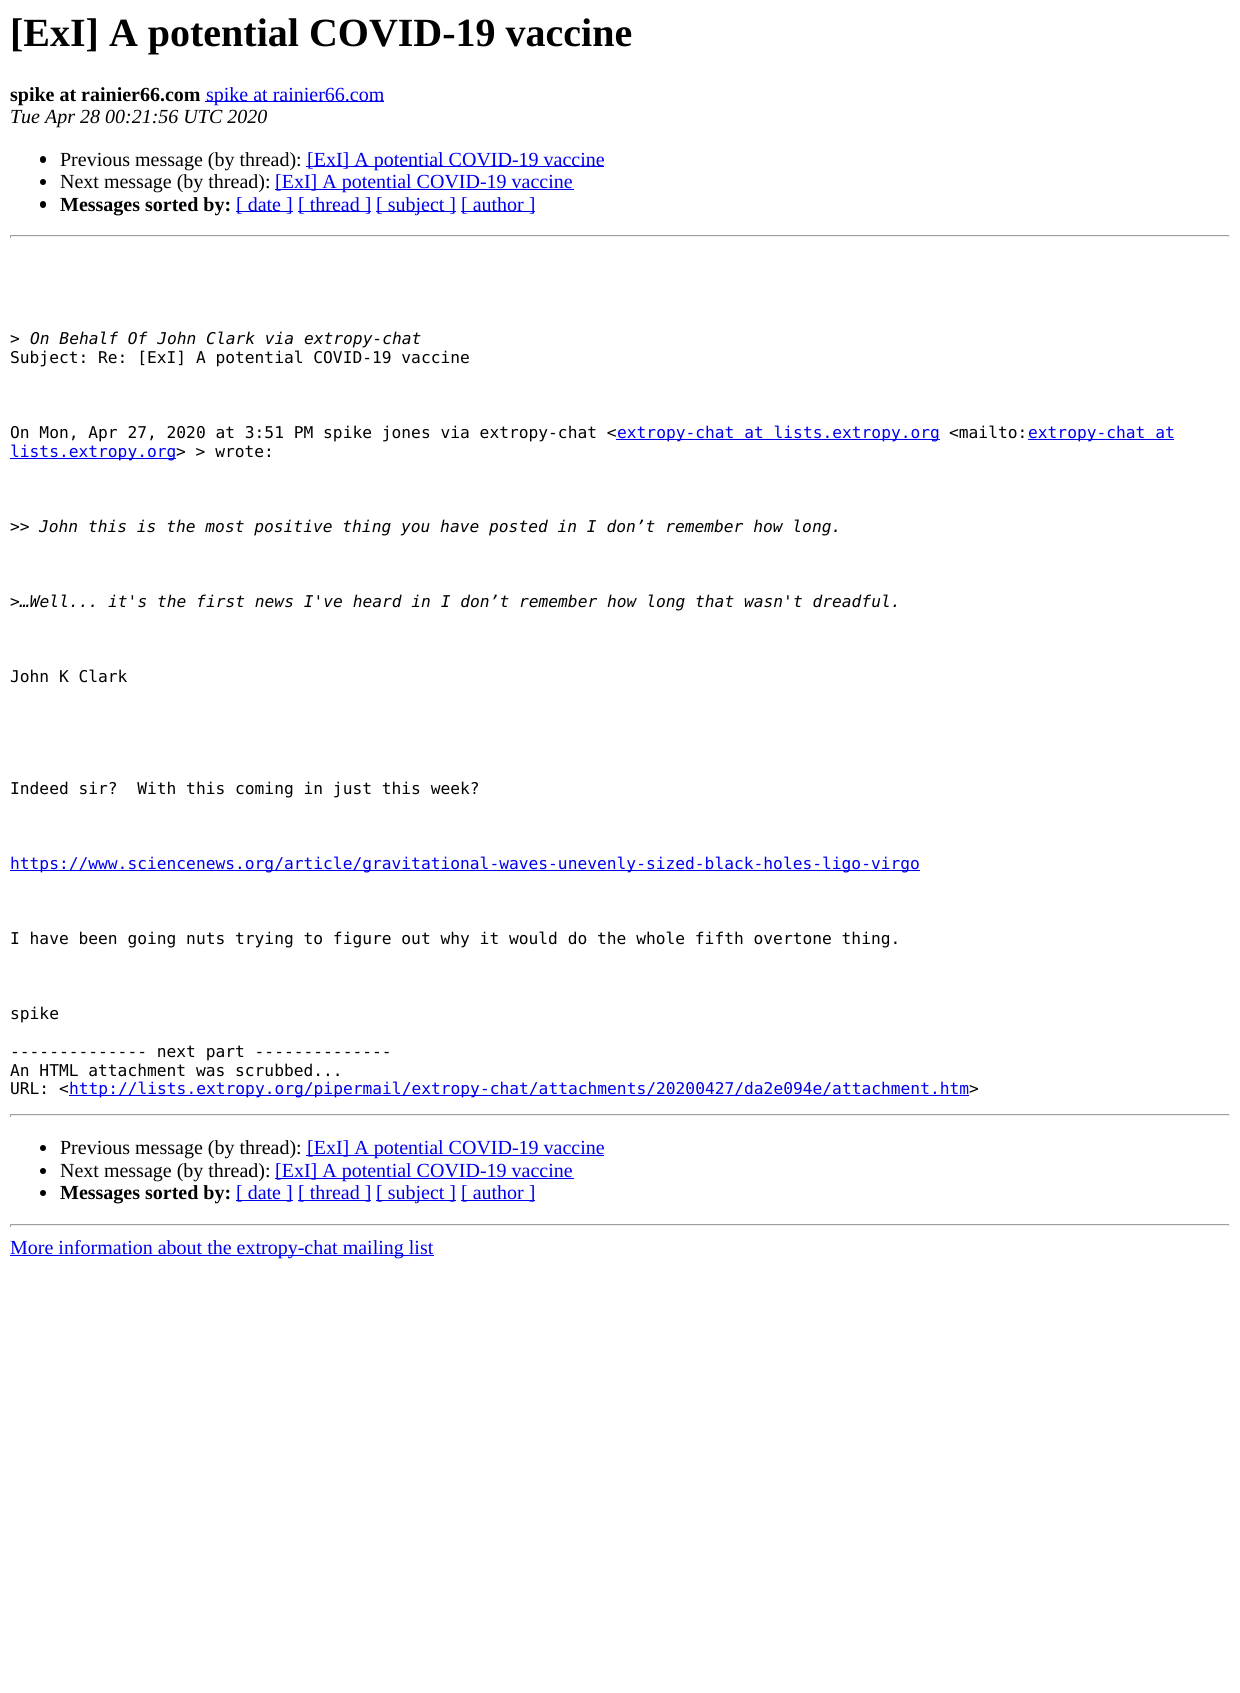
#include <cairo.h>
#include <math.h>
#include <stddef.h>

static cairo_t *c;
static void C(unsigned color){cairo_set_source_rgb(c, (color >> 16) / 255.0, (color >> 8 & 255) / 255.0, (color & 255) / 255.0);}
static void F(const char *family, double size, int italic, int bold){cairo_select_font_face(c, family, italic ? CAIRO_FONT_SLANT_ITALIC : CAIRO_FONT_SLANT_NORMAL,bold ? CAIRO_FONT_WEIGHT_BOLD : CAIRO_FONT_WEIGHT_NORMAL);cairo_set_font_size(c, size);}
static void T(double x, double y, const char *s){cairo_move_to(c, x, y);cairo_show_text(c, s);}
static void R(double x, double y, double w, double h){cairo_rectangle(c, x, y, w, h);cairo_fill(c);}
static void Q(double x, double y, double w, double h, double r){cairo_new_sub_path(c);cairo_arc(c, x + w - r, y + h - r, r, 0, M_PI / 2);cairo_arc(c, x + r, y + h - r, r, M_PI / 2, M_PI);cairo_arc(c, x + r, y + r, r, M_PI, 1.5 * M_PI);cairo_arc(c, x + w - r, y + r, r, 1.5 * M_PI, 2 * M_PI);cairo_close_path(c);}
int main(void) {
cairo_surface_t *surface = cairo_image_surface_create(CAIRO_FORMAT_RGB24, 1240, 1693);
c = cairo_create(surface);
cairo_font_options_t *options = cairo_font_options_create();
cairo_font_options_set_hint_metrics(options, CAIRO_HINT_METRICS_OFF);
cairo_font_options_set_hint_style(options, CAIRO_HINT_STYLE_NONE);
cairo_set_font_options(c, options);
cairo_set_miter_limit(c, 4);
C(0xffffff);
cairo_paint(c);
F("Liberation Serif",40,0,1);
C(0x000000);
T(10,46,"[ExI] A potential COVID-19 vaccine");
F("Liberation Serif",20,0,1);
T(10,101,"spike at rainier66.com");
C(0x0000ee);
R(205,101,179,1);
F("Liberation Serif",20,0,0);
T(206,101,"spike at rainier66.com");
F("Liberation Serif",20,1,0);
C(0x000000);
T(10,123,"Tue Apr 28 00:21:56 UTC 2020");
Q(40,156,6,7,3);
cairo_fill(c);
F("Liberation Serif",20,0,0);
T(60,166,"Previous message (by thread):");
C(0x0000ee);
R(306,166,298,1);
T(307,166,"[ExI] A potential COVID-19 vaccine");
C(0x000000);
cairo_new_path(c);
cairo_arc(c,43,182,3,0,2 * M_PI);
cairo_fill(c);
T(60,188,"Next message (by thread):");
C(0x0000ee);
R(275,189,299,1);
T(275,188,"[ExI] A potential COVID-19 vaccine");
C(0x000000);
Q(40,201,6,7,3);
cairo_fill(c);
F("Liberation Serif",20,0,1);
T(60,211,"Messages sorted by:");
C(0x0000ee);
R(236,211,57,1);
F("Liberation Serif",20,0,0);
T(236,211,"[ date ]");
R(298,211,73,1);
T(298,211,"[ thread ]");
R(376,211,80,1);
T(376,211,"[ subject ]");
R(461,211,74,1);
T(461,211,"[ author ]");
C(0x9f9f9f);
R(10,235,1220,1);
C(0xeeeeee);
R(1229,235,1,3);
R(10,236,1220,1);
C(0x9f9f9f);
R(10,235,1,3);
F("DejaVu Sans Mono",16.25,0,0);
C(0x000000);
T(10,344,">");
F("DejaVu Sans Mono",16.25,1,0);
T(30,344,"On Behalf Of John Clark via extropy-chat");
F("DejaVu Sans Mono",16.25,0,0);
T(10,363,"Subject: Re: [ExI] A potential COVID-19 vaccine");
T(10,438,"On Mon, Apr 27, 2020 at 3:51 PM spike jones via extropy-chat <");
C(0x0000ee);
R(616,439,324,1);
T(617,438,"extropy-chat at lists.extropy.org");
C(0x000000);
T(949,438,"<mailto:");
C(0x0000ee);
R(1028,439,146,1);
T(1028,438,"extropy-chat at");
R(10,458,166,1);
T(10,457,"lists.extropy.org");
C(0x000000);
T(176,457,"> > wrote:");
T(10,532,">>");
F("DejaVu Sans Mono",16.25,1,0);
T(39,532,"John this is the most positive thing you have posted in I don’t remember how long.");
F("DejaVu Sans Mono",16.25,0,0);
T(10,607,">");
F("DejaVu Sans Mono",16.25,1,0);
T(20,607,"…Well... it's the first news I've heard in I don’t remember how long that wasn't dreadful.");
F("DejaVu Sans Mono",16.25,0,0);
T(10,682,"John K Clark");
T(10,794,"Indeed sir?  With this coming in just this week?");
C(0x0000ee);
R(10,870,910,1);
T(10,869,"https://www.sciencenews.org/article/gravitational-waves-unevenly-sized-black-holes-ligo-virgo");
C(0x000000);
T(10,944,"I have been going nuts trying to figure out why it would do the whole fifth overtone thing.");
T(10,1019,"spike");
T(10,1057,"-------------- next part --------------");
T(10,1076,"An HTML attachment was scrubbed...");
T(10,1094,"URL: <");
C(0x0000ee);
R(69,1095,900,1);
T(69,1094,"http://lists.extropy.org/pipermail/extropy-chat/attachments/20200427/da2e094e/attachment.htm");
C(0x000000);
T(969,1094,">");
C(0x9f9f9f);
R(10,1114,1220,1);
C(0xeeeeee);
R(1229,1114,1,3);
R(10,1115,1220,1);
C(0x9f9f9f);
R(10,1114,1,3);
C(0x000000);
cairo_new_path(c);
cairo_arc(c,43,1148,3,0,2 * M_PI);
cairo_fill(c);
F("Liberation Serif",20,0,0);
T(60,1154,"Previous message (by thread):");
C(0x0000ee);
R(306,1155,298,1);
T(307,1154,"[ExI] A potential COVID-19 vaccine");
C(0x000000);
cairo_new_path(c);
cairo_arc(c,43,1171,3,0,2 * M_PI);
cairo_fill(c);
T(60,1177,"Next message (by thread):");
C(0x0000ee);
R(275,1178,299,1);
T(275,1177,"[ExI] A potential COVID-19 vaccine");
C(0x000000);
cairo_new_path(c);
cairo_arc(c,43,1193,3,0,2 * M_PI);
cairo_fill(c);
F("Liberation Serif",20,0,1);
T(60,1199,"Messages sorted by:");
C(0x0000ee);
R(236,1200,57,1);
F("Liberation Serif",20,0,0);
T(236,1199,"[ date ]");
R(298,1200,73,1);
T(298,1199,"[ thread ]");
R(376,1200,80,1);
T(376,1199,"[ subject ]");
R(461,1200,74,1);
T(461,1199,"[ author ]");
C(0x9f9f9f);
R(10,1224,1220,1);
C(0xeeeeee);
R(1229,1224,1,3);
R(10,1225,1220,1);
C(0x9f9f9f);
R(10,1224,1,3);
C(0x0000ee);
R(10,1255,424,1);
T(10,1254,"More information about the extropy-chat mailing list");
cairo_surface_write_to_png(surface, "o.png");
cairo_font_options_destroy(options);
cairo_destroy(c);
cairo_surface_destroy(surface);
return 0;
}
